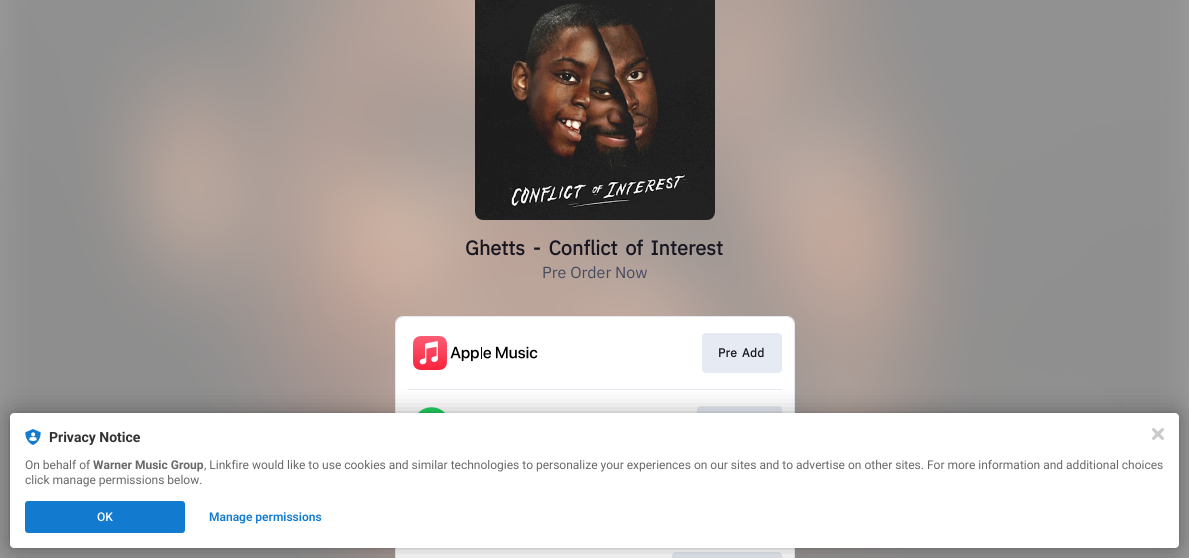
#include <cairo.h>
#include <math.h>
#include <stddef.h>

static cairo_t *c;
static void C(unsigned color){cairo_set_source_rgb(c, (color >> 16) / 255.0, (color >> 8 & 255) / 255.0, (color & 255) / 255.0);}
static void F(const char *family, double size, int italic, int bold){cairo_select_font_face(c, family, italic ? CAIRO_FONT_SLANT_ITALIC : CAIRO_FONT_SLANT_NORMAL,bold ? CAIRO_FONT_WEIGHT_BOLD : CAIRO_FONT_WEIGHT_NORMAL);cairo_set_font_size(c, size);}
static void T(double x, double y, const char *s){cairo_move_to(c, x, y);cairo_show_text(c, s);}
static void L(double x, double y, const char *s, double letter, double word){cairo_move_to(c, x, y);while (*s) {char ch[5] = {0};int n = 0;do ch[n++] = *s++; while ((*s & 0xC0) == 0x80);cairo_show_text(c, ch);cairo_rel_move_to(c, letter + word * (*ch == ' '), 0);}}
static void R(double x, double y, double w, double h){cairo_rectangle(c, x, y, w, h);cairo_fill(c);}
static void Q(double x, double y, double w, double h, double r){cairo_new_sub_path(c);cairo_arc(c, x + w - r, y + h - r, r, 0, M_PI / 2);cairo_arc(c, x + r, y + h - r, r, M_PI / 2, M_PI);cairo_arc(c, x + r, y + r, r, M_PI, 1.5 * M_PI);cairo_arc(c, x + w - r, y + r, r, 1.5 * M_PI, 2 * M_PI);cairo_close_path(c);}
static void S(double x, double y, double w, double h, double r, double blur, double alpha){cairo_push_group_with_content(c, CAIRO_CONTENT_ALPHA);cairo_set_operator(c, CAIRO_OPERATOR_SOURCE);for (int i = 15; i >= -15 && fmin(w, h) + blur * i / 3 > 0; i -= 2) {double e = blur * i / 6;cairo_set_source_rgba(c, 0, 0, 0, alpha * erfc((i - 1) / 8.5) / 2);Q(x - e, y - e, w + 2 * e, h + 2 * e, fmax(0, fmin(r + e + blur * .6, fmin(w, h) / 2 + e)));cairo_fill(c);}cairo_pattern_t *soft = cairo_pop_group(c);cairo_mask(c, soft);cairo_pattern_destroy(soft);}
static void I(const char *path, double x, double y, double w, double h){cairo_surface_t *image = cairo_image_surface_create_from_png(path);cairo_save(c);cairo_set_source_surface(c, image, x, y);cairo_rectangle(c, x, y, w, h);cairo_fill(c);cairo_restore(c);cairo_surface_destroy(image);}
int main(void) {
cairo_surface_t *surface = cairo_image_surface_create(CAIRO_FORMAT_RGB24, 1189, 558);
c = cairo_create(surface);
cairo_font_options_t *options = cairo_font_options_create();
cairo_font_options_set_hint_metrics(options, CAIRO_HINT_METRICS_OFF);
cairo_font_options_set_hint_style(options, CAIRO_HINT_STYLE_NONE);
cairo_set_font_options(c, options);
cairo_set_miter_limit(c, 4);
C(0xffffff);
cairo_paint(c);
I("1.png",0,0,1189,558);
I("2.png",475,0,240,220);
F("IBM Plex Sans",20,0,1);
C(0x181721);
L(465,255,"Ghetts - Conflict of Interest",0,3);
F("IBM Plex Sans",16,0,0);
C(0x454b5f);
T(542,278,"Pre Order Now");
Q(395.5,316.5,399,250,7.5);
C(0xe6eaf2);
cairo_set_line_width(c,1);
cairo_stroke(c);
C(0xffffff);
Q(396,317,398,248,7);
cairo_fill(c);
I("3.png",413,336,125,34);
C(0xe6eaf2);
Q(702,333,80,40,4);
cairo_fill(c);
F("IBM Plex Sans",12,0,1);
C(0x181721);
L(718,357,"Pre Add",.25,2);
C(0xe6eaf2);
R(408,389,374,1);
I("4.png",418,407,27,6);
Q(697,406,85,40,4);
cairo_fill(c);
Q(672,552,110,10,4);
cairo_fill(c);
C(0x000000);
S(10,413,1169,135,4,2,.12);
S(10,413,1169,135,4,12,.3);
C(0xffffff);
Q(10,413,1169,135,4);
cairo_fill(c);
I("5.png",1152,428,12,12);
I("6.png",25,429,16,16);
F("Roboto",14,0,1);
C(0x323232);
T(49,442,"Privacy Notice");
F("Roboto",12,0,0);
C(0x686868);
T(25,469,"On behalf of");
F("Roboto",12,0,1);
T(93,469,"Warner Music Group");
F("Roboto",12,0,0);
T(204,469,", Linkfire would like to use cookies and similar technologies to personalize your experiences on our sites and to advertise on other sites. For more information and additional choices");
T(25,484,"click manage permissions below.");
C(0x137bcf);
Q(25,501,160,32,3);
cairo_fill(c);
F("Roboto Medium",12,0,0);
C(0xffffff);
T(97,521,"OK");
F("Roboto SemiBold",12,0,0);
C(0x137bcf);
T(209,521,"Manage permissions");
cairo_surface_write_to_png(surface, "o.png");
cairo_font_options_destroy(options);
cairo_destroy(c);
cairo_surface_destroy(surface);
return 0;
}
